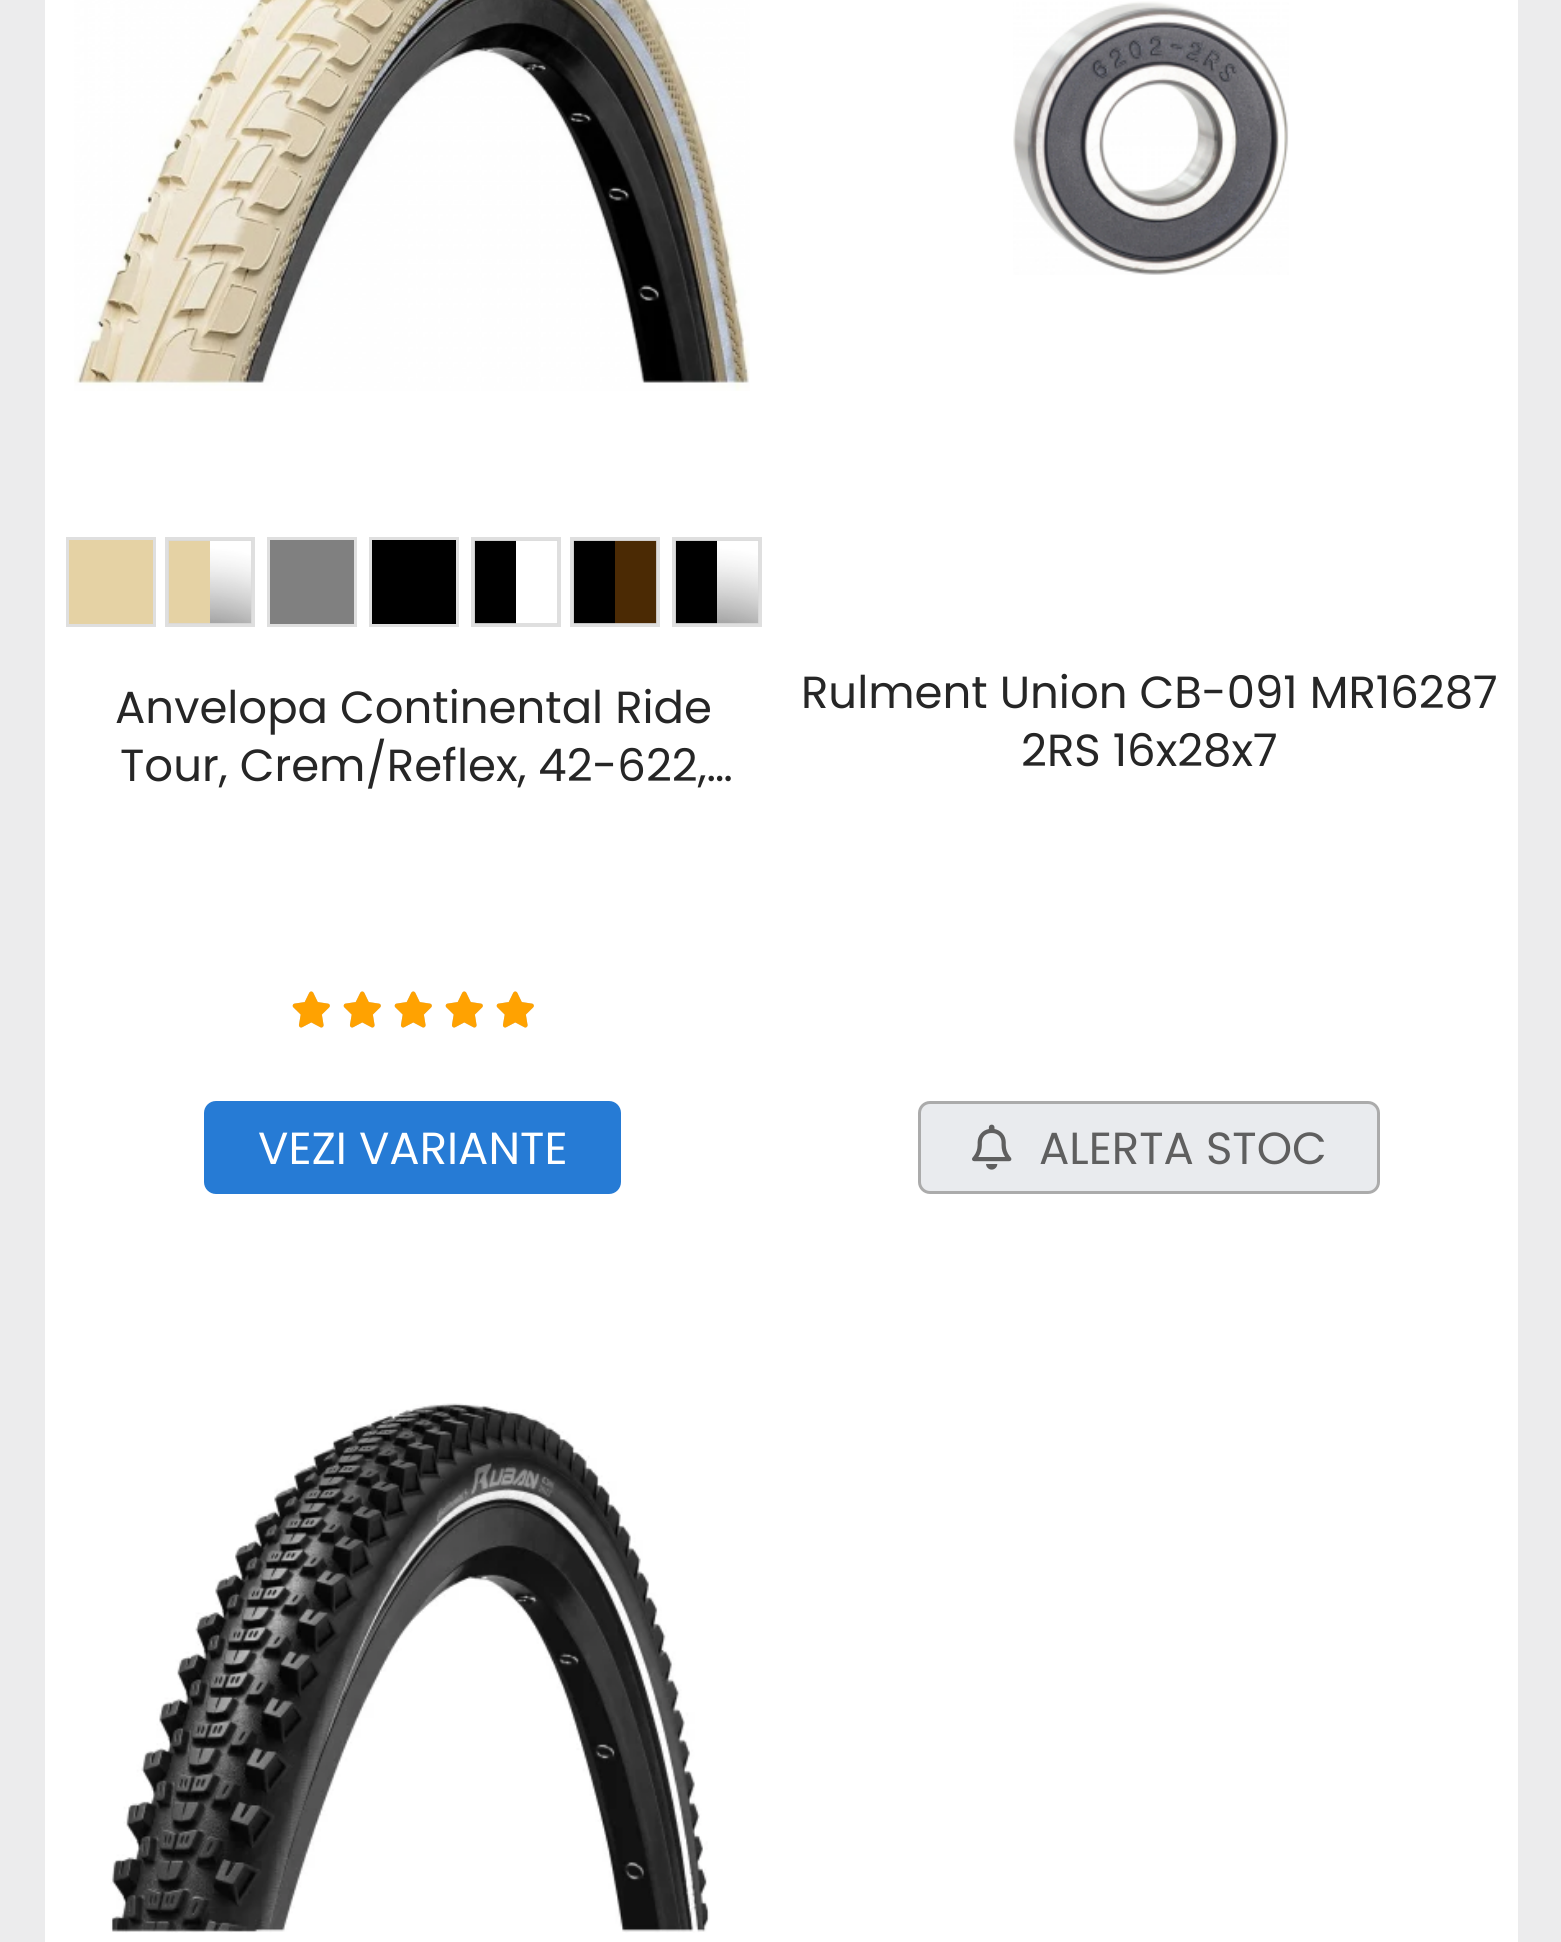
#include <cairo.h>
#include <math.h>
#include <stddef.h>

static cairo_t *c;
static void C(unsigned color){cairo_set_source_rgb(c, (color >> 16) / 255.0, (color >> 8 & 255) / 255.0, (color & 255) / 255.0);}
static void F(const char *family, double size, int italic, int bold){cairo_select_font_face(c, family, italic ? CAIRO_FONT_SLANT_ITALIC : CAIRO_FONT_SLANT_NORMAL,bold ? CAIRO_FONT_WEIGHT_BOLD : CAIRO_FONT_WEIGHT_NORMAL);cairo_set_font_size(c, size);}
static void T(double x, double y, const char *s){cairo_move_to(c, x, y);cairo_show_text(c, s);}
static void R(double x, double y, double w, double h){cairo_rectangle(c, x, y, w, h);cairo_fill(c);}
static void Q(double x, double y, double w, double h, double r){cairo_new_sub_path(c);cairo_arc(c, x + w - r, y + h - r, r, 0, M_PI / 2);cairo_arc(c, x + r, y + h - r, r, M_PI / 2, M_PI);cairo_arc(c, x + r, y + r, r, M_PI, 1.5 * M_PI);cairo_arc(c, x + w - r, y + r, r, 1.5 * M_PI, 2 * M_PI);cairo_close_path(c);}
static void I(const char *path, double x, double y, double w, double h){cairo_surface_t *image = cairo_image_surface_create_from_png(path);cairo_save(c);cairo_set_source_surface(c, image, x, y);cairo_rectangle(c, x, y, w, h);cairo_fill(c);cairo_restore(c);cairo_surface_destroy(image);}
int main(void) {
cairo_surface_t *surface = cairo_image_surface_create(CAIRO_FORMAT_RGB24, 1561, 1942);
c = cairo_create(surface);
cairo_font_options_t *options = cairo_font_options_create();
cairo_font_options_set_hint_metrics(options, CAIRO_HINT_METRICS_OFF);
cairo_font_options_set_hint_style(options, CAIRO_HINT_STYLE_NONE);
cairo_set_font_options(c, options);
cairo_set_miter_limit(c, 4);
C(0xececed);
cairo_paint(c);
C(0xffffff);
R(45,0,1473,1942);
I("1.png",74,0,676,391);
cairo_rectangle(c,67.5,538.5,87,87);
C(0xdfdfdf);
cairo_set_line_width(c,3);
cairo_stroke(c);
C(0xe5d2a4);
R(69,540,84,84);
cairo_rectangle(c,166.5,538.5,87,87);
C(0xdfdfdf);
cairo_stroke(c);
I("2.png",168,540,84,84);
cairo_rectangle(c,268.5,538.5,87,87);
cairo_stroke(c);
C(0x808080);
R(270,540,84,84);
cairo_rectangle(c,370.5,538.5,87,87);
C(0xdfdfdf);
cairo_stroke(c);
C(0x000000);
R(372,540,84,84);
cairo_rectangle(c,472.5,538.5,87,87);
C(0xdfdfdf);
cairo_stroke(c);
I("3.png",474,540,84,84);
cairo_rectangle(c,571.5,538.5,87,87);
cairo_stroke(c);
I("4.png",573,540,84,84);
cairo_rectangle(c,673.5,538.5,87,87);
cairo_stroke(c);
I("5.png",675,540,84,84);
F("Poppins",45,0,0);
C(0x262626);
T(115,723,"Anvelopa Continental Ride");
T(120,781,"Tour, Crem/Reflex, 42-622,…");
I("6.png",292,991,38,37);
I("7.png",292,991,38,37);
I("6.png",343,991,38,37);
I("7.png",343,991,38,37);
I("6.png",394,991,38,37);
I("7.png",394,991,38,37);
I("6.png",445,991,38,37);
I("7.png",445,991,38,37);
I("6.png",496,991,38,37);
I("7.png",496,991,38,37);
C(0x267bd5);
Q(205.5,1102.5,414,90,10.5);
cairo_fill_preserve(c);
cairo_stroke(c);
C(0xffffff);
T(258,1164,"VEZI VARIANTE");
I("8.png",1013,1,276,274);
C(0x262626);
T(801,708,"Rulment Union CB-091 MR16287");
T(1021,766,"2RS 16x28x7");
C(0xe9ebee);
Q(919.5,1102.5,459,90,10.5);
cairo_fill_preserve(c);
C(0xababab);
cairo_stroke(c);
I("9.png",972,1124,40,46);
C(0x5f5f5f);
T(1039,1164,"ALERTA STOC");
I("10.png",110,1403,600,530);
cairo_surface_write_to_png(surface, "o.png");
cairo_font_options_destroy(options);
cairo_destroy(c);
cairo_surface_destroy(surface);
return 0;
}
